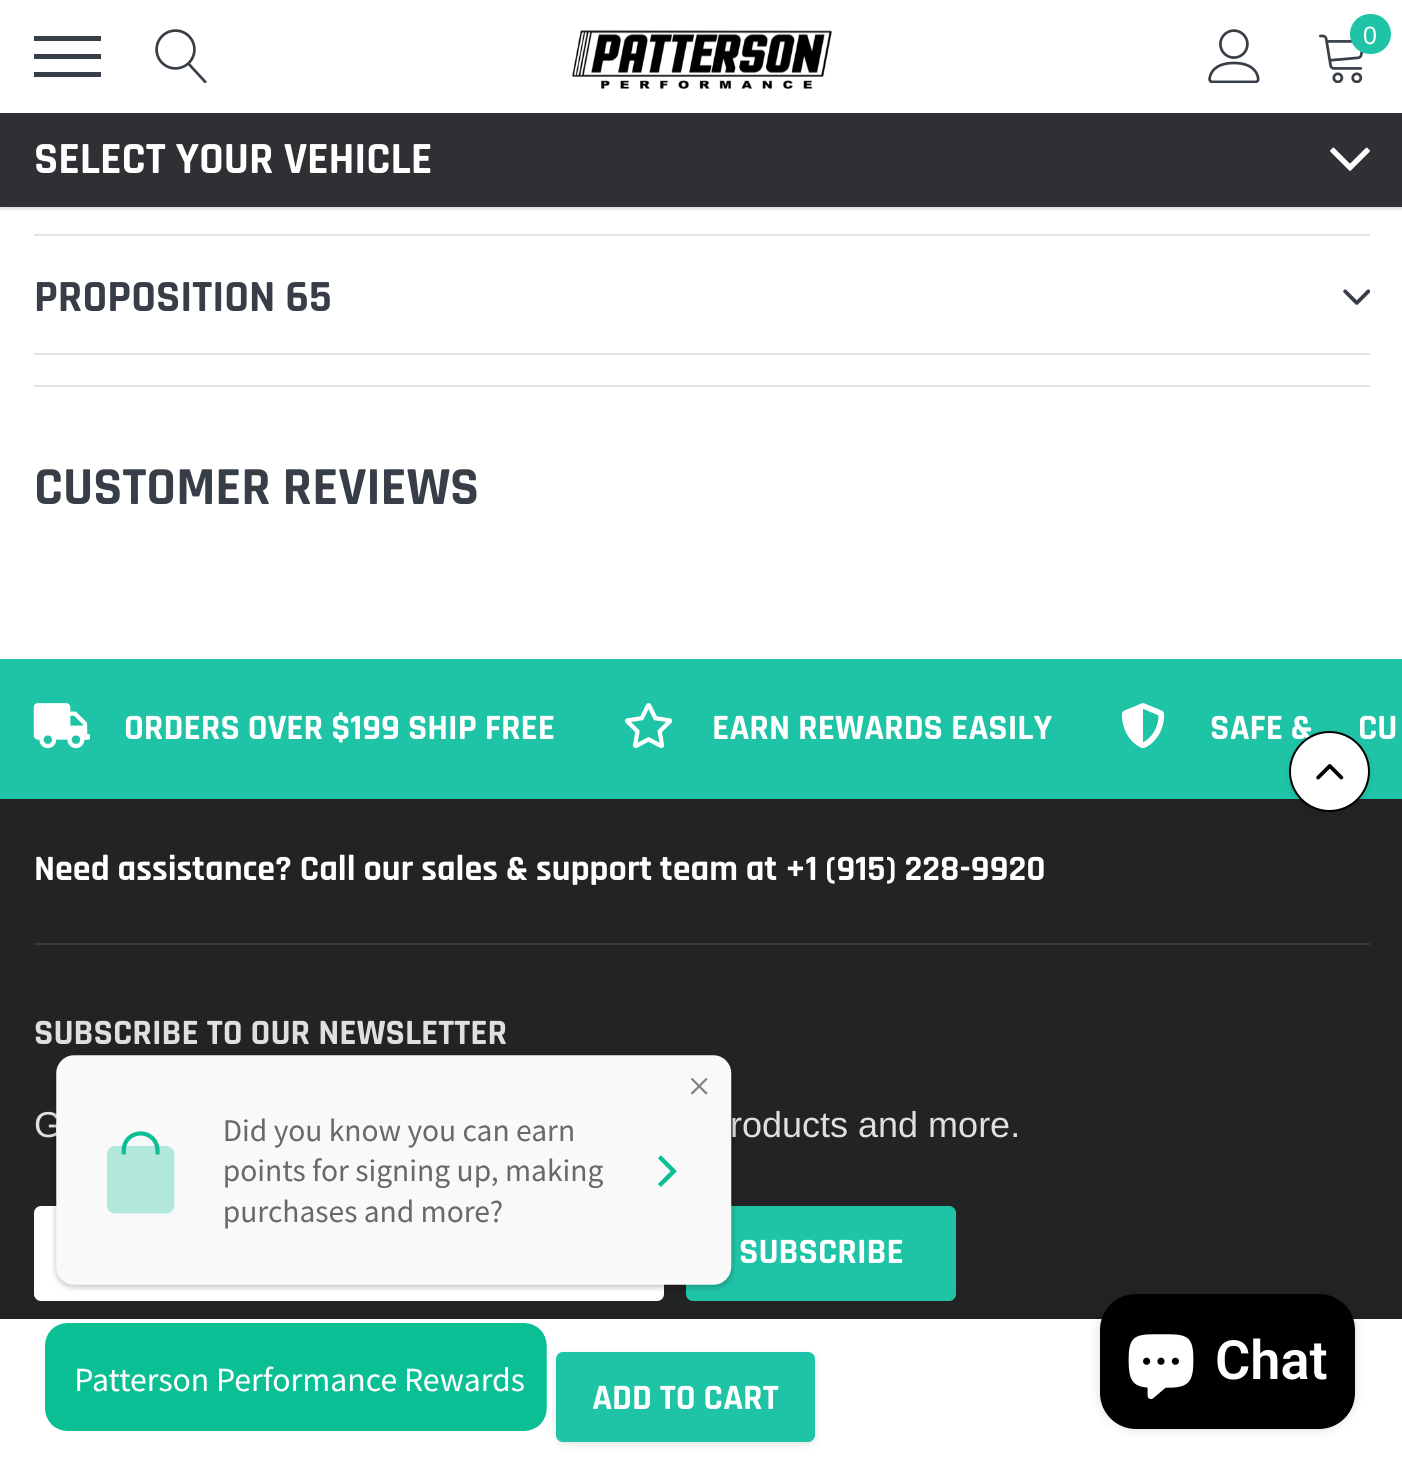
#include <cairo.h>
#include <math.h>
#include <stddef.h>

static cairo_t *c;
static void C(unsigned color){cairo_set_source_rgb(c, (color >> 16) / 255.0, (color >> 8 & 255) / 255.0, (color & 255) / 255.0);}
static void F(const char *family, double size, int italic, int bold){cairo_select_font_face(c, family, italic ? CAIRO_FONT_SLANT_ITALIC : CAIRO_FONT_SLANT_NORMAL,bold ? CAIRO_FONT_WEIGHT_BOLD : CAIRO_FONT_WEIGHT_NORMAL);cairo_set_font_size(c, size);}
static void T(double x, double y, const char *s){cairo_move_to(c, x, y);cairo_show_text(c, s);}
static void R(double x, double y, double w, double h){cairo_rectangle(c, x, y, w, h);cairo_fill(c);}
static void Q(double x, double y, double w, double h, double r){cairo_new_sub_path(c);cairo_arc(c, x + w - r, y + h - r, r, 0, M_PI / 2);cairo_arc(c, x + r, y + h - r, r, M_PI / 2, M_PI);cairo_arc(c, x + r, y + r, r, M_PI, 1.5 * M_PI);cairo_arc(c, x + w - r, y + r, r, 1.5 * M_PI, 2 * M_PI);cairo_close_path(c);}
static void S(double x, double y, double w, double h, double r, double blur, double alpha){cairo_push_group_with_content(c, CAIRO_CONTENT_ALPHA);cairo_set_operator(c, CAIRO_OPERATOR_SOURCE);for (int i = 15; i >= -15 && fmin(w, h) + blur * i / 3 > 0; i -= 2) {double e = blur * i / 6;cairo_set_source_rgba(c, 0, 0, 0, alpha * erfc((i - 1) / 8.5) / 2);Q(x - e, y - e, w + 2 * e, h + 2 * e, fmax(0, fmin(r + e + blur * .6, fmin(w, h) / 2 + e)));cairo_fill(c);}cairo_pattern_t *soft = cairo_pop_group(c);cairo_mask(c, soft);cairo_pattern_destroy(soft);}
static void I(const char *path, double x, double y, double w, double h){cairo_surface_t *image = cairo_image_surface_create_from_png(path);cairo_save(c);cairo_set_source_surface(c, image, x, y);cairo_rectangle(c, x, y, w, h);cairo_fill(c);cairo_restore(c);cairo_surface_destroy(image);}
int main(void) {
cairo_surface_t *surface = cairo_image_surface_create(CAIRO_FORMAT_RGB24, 1402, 1476);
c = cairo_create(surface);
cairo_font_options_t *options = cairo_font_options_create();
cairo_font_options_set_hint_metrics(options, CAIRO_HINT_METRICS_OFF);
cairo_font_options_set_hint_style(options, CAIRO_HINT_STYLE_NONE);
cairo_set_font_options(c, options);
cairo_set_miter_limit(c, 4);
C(0xffffff);
cairo_paint(c);
C(0x000000);
S(0,2,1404,207,0,2,.15);
C(0xffffff);
R(0,0,1402,113);
C(0x383e47);
R(34,54,67,5);
R(34,36,67,5);
R(34,72,67,5);
I("1.png",155,29,52,54);
I("2.png",572,30,260,59);
I("3.png",1208,29,52,54);
I("4.png",1319,34,45,49);
C(0x1fc4a7);
Q(1350,14,41,40,20);
cairo_fill(c);
F("Arimo",25,0,0);
C(0xffffff);
T(1363,44,"0");
C(0x2e3033);
R(0,113,1402,94);
F("Rajdhani",45,0,1);
C(0xffffff);
T(34,173,"SELECT YOUR VEHICLE");
I("5.png",1330,147,40,24);
C(0xe2e4e8);
R(34,353,1336,2);
R(34,234,1336,2);
C(0x383e47);
T(34,311,"PROPOSITION 65");
I("6.png",1343,289,27,16);
C(0xe2e4e8);
R(34,385,1336,2);
F("Rajdhani",54,0,1);
C(0x383e47);
T(34,504,"CUSTOMER REVIEWS");
C(0x222325);
R(0,799,1402,520);
C(0x000000);
S(0,1319,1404,157,0,4.5,.2);
C(0xffffff);
R(0,1319,1402,157);
C(0x000000);
S(556,1355,259,90,7,3.5,.1);
C(0x1fc4a7);
Q(557,1353,257,88,6);
cairo_fill_preserve(c);
cairo_stroke(c);
F("Rajdhani",36,0,1);
C(0xffffff);
T(592,1409,"ADD TO CART");
C(0x1fc4a7);
R(0,659,1402,140);
I("7.png",33,703,57,46);
C(0xffffff);
T(124,739,"ORDERS OVER $199 SHIP FREE");
I("8.png",625,703,48,46);
T(712,739,"EARN REWARDS EASILY");
I("9.png",1121,703,44,46);
T(1210,739,"SAFE &");
T(1358,739,"CU");
C(0x000000);
S(1289,734,81,81,40.5,3.5,.1);
C(0xffffff);
cairo_arc(c,1329.5,771.5,39.5,0,2 * M_PI);
cairo_fill_preserve(c);
C(0x000000);
cairo_stroke(c);
I("10.png",1316,764,28,16);
C(0x39393b);
R(34,943,1336,2);
C(0xffffff);
T(34,880,"Need assistance? Call our sales & support team at +1 (915) 228-9920");
C(0xdfdfdf);
T(34,1044,"SUBSCRIBE TO OUR NEWSLETTER");
F("Arimo",36,0,0);
T(34,1137,"G");
T(730,1137,"roducts and more.");
C(0xffffff);
Q(35,1207,628,93,6);
cairo_fill_preserve(c);
cairo_stroke(c);
C(0x1fc4a7);
Q(687,1207,268,93,6);
cairo_fill_preserve(c);
cairo_stroke(c);
F("Rajdhani",36,0,1);
C(0xffffff);
T(739,1263,"SUBSCRIBE");
I("11.png",52,1055,684,236);
I("12.png",45,1323,502,108);
C(0x000000);
S(1100,1294,255,135,36,5.5,.15);
C(0x000000);
Q(1100,1294,255,135,36);
cairo_fill(c);
I("13.png",1128,1334,66,65);
F("Roboto SemiBold",54,0,0);
C(0xffffff);
T(1215,1379,"Chat");
cairo_surface_write_to_png(surface, "o.png");
cairo_font_options_destroy(options);
cairo_destroy(c);
cairo_surface_destroy(surface);
return 0;
}
